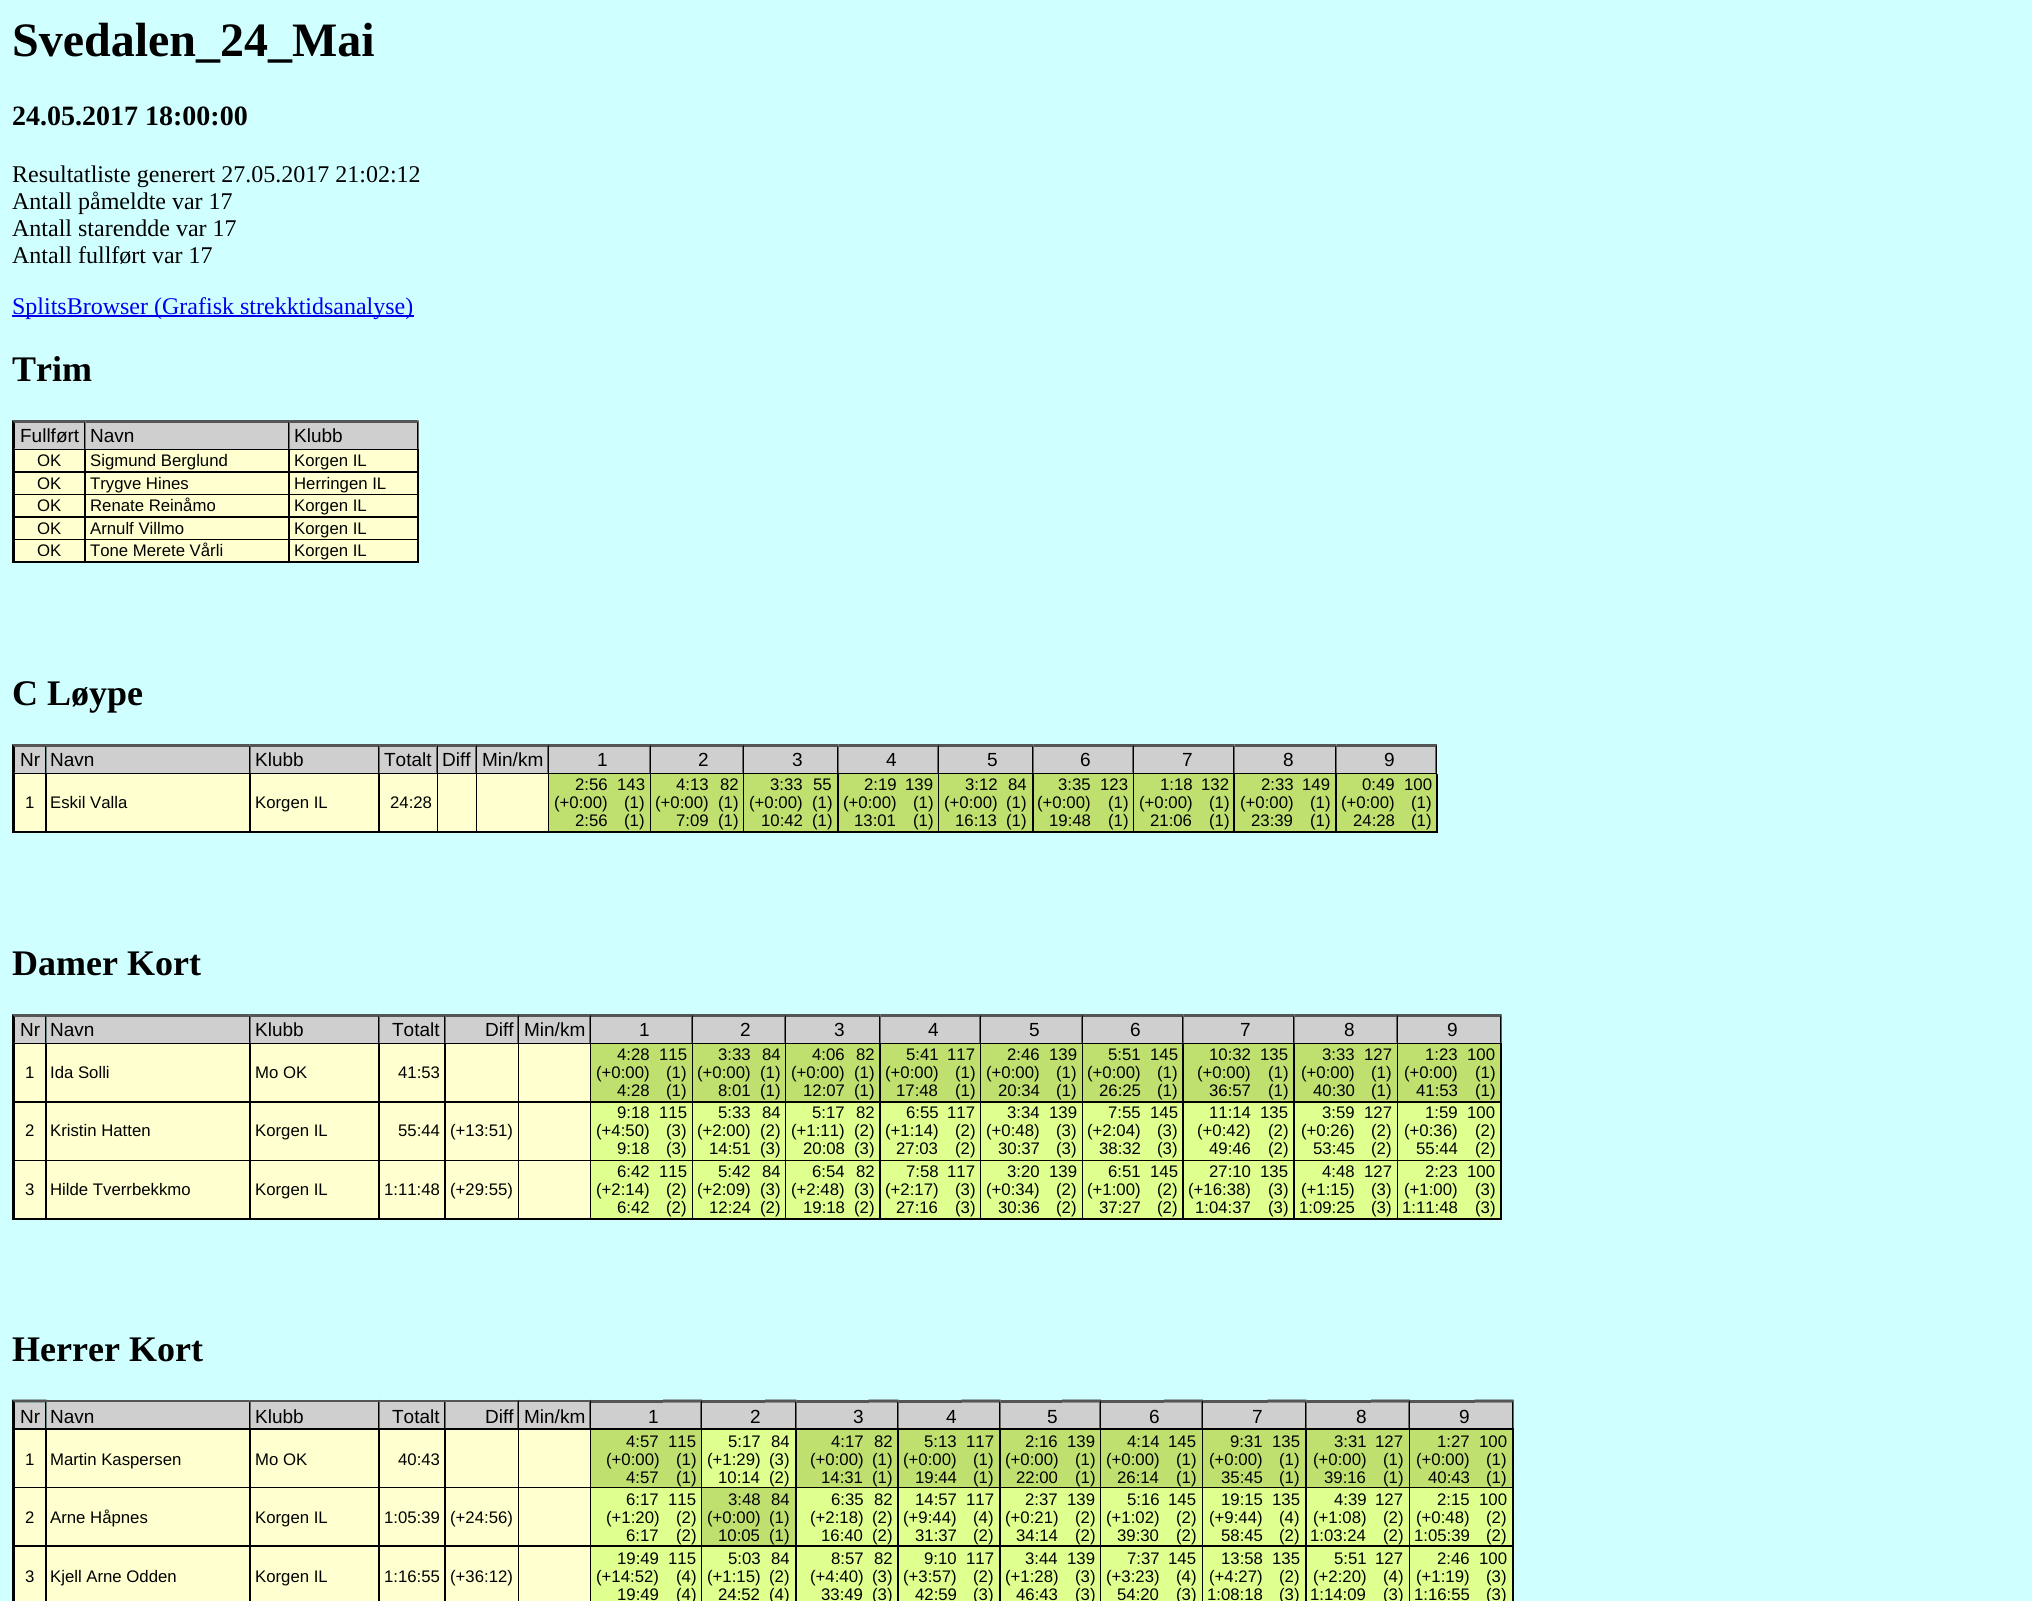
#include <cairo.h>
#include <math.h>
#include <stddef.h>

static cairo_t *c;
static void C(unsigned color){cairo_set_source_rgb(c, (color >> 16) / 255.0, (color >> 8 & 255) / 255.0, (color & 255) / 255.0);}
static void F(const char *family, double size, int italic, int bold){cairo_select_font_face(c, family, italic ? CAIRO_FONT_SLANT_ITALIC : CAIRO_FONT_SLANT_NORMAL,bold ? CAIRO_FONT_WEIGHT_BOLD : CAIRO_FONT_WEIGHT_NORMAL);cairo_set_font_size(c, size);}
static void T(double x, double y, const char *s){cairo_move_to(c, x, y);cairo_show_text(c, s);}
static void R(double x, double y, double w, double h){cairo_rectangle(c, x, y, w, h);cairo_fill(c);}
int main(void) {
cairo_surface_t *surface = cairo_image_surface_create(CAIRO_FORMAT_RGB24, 2032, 1601);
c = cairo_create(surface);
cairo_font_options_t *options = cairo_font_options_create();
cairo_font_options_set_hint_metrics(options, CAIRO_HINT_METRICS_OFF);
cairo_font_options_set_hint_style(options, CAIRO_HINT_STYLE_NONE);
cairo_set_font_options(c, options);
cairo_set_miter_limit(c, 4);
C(0xd0ffff);
cairo_paint(c);
F("Liberation Serif",48,0,1);
C(0x000000);
T(12,56,"Svedalen_24_Mai");
F("Liberation Serif",28,0,1);
T(12,125,"24.05.2017 18:00:00");
F("Liberation Serif",24,0,0);
T(12,182,"Resultatliste generert 27.05.2017 21:02:12");
T(12,209,"Antall påmeldte var 17");
T(12,236,"Antall starendde var 17");
T(12,263,"Antall fullført var 17");
C(0x0000ee);
R(12,315,402,2);
T(12,314,"SplitsBrowser (Grafisk strekktidsanalyse)");
F("Liberation Serif",36,0,1);
C(0x000000);
T(12,381,"Trim");
C(0xcfcfcf);
R(15,423,69,26);
C(0x555555);
cairo_new_path(c);
cairo_move_to(c,12,420);
cairo_line_to(c,86,420);
cairo_line_to(c,84,423);
cairo_line_to(c,15,423);
cairo_close_path(c);
cairo_fill(c);
C(0x000000);
cairo_new_path(c);
cairo_move_to(c,85.5,420);
cairo_line_to(c,85.5,450);
cairo_line_to(c,84,448.5);
cairo_line_to(c,84,423);
cairo_close_path(c);
cairo_fill(c);
R(12,449,74,1);
cairo_new_path(c);
cairo_move_to(c,12,450);
cairo_line_to(c,12,420);
cairo_line_to(c,15,423);
cairo_line_to(c,15,448.5);
cairo_close_path(c);
cairo_fill(c);
F("Liberation Sans",19,0,0);
T(20,442,"Fullført");
C(0xcfcfcf);
R(86,420,333,29);
C(0x555555);
cairo_new_path(c);
cairo_move_to(c,86,420);
cairo_line_to(c,290,420);
cairo_line_to(c,288,423);
cairo_line_to(c,86,423);
cairo_close_path(c);
cairo_fill(c);
C(0x000000);
cairo_new_path(c);
cairo_move_to(c,289.5,420);
cairo_line_to(c,289.5,450);
cairo_line_to(c,288,448.5);
cairo_line_to(c,288,423);
cairo_close_path(c);
cairo_fill(c);
R(86,449,204,1);
T(90,442,"Navn");
C(0x555555);
cairo_new_path(c);
cairo_move_to(c,290,420);
cairo_line_to(c,418,420);
cairo_line_to(c,417,423);
cairo_line_to(c,290,423);
cairo_close_path(c);
cairo_fill(c);
C(0x000000);
cairo_new_path(c);
cairo_move_to(c,418.5,420);
cairo_line_to(c,418.5,450);
cairo_line_to(c,417,448.5);
cairo_line_to(c,417,423);
cairo_close_path(c);
cairo_fill(c);
R(290,449,129,1);
T(294,442,"Klubb");
C(0xffffcf);
R(15,450,69,21);
C(0x000000);
R(84,450,2,113);
R(12,471,74,2);
R(12,450,3,23);
F("Liberation Sans",16.75,0,0);
T(37,466,"OK");
C(0xffffcf);
R(86,450,202,21);
C(0x000000);
R(288,450,2,113);
R(86,471,204,2);
T(90,466,"Sigmund Berglund");
C(0xffffcf);
R(290,450,127,21);
C(0x000000);
R(417,450,2,113);
R(290,471,129,2);
T(294,466,"Korgen IL");
C(0xffffcf);
R(15,473,69,21);
C(0x000000);
R(12,494,407,1);
R(12,473,3,22);
T(37,489,"OK");
C(0xffffcf);
R(86,473,202,21);
C(0x000000);
T(90,489,"Trygve Hines");
C(0xffffcf);
R(290,473,127,21);
C(0x000000);
T(294,489,"Herringen IL");
C(0xffffcf);
R(15,495,69,21);
C(0x000000);
R(12,516,407,2);
R(12,495,3,23);
T(37,511,"OK");
C(0xffffcf);
R(86,495,202,21);
C(0x000000);
T(90,511,"Renate Reinåmo");
C(0xffffcf);
R(290,495,127,21);
C(0x000000);
T(294,511,"Korgen IL");
C(0xffffcf);
R(15,518,69,21);
C(0x000000);
R(12,539,407,1);
R(12,518,3,22);
T(37,534,"OK");
C(0xffffcf);
R(86,518,202,21);
C(0x000000);
T(90,534,"Arnulf Villmo");
C(0xffffcf);
R(290,518,127,21);
C(0x000000);
T(294,534,"Korgen IL");
C(0xffffcf);
R(15,540,69,21);
C(0x000000);
R(12,561,407,2);
R(12,540,3,23);
T(37,556,"OK");
C(0xffffcf);
R(86,540,202,21);
C(0x000000);
T(90,556,"Tone Merete Vårli");
C(0xffffcf);
R(290,540,127,21);
C(0x000000);
T(294,556,"Korgen IL");
F("Liberation Serif",36,0,1);
T(12,705,"C Løype");
C(0xcfcfcf);
R(15,747,30,26);
C(0x555555);
cairo_new_path(c);
cairo_move_to(c,12,744);
cairo_line_to(c,46.5,744);
cairo_line_to(c,45,747);
cairo_line_to(c,15,747);
cairo_close_path(c);
cairo_fill(c);
C(0x000000);
cairo_new_path(c);
cairo_move_to(c,46.5,744);
cairo_line_to(c,46.5,774);
cairo_line_to(c,45,772.5);
cairo_line_to(c,45,747);
cairo_close_path(c);
cairo_fill(c);
R(12,773,35,1);
cairo_new_path(c);
cairo_move_to(c,12,774);
cairo_line_to(c,12,744);
cairo_line_to(c,15,747);
cairo_line_to(c,15,772.5);
cairo_close_path(c);
cairo_fill(c);
F("Liberation Sans",19,0,0);
T(20,766,"Nr");
C(0xcfcfcf);
R(47,744,502,29);
C(0x555555);
cairo_new_path(c);
cairo_move_to(c,46,744);
cairo_line_to(c,250,744);
cairo_line_to(c,249,747);
cairo_line_to(c,46,747);
cairo_close_path(c);
cairo_fill(c);
C(0x000000);
cairo_new_path(c);
cairo_move_to(c,250.5,744);
cairo_line_to(c,250.5,774);
cairo_line_to(c,249,772.5);
cairo_line_to(c,249,747);
cairo_close_path(c);
cairo_fill(c);
R(47,773,204,1);
T(50,766,"Navn");
C(0x555555);
cairo_new_path(c);
cairo_move_to(c,250,744);
cairo_line_to(c,380,744);
cairo_line_to(c,378,747);
cairo_line_to(c,250,747);
cairo_close_path(c);
cairo_fill(c);
C(0x000000);
cairo_new_path(c);
cairo_move_to(c,379.5,744);
cairo_line_to(c,379.5,774);
cairo_line_to(c,378,772.5);
cairo_line_to(c,378,747);
cairo_close_path(c);
cairo_fill(c);
R(251,773,129,1);
T(255,766,"Klubb");
C(0x555555);
cairo_new_path(c);
cairo_move_to(c,380,744);
cairo_line_to(c,438,744);
cairo_line_to(c,436,747);
cairo_line_to(c,380,747);
cairo_close_path(c);
cairo_fill(c);
C(0x000000);
cairo_new_path(c);
cairo_move_to(c,438,744);
cairo_line_to(c,438,774);
cairo_line_to(c,436.5,772.5);
cairo_line_to(c,436.5,747);
cairo_close_path(c);
cairo_fill(c);
R(380,773,58,1);
T(384,766,"Totalt");
C(0x555555);
cairo_new_path(c);
cairo_move_to(c,438,744);
cairo_line_to(c,477,744);
cairo_line_to(c,475.5,747);
cairo_line_to(c,438,747);
cairo_close_path(c);
cairo_fill(c);
C(0x000000);
cairo_new_path(c);
cairo_move_to(c,477,744);
cairo_line_to(c,477,774);
cairo_line_to(c,475.5,772.5);
cairo_line_to(c,475.5,747);
cairo_close_path(c);
cairo_fill(c);
R(438,773,39,1);
T(442,766,"Diff");
C(0x555555);
cairo_new_path(c);
cairo_move_to(c,477,744);
cairo_line_to(c,549,744);
cairo_line_to(c,548,747);
cairo_line_to(c,477,747);
cairo_close_path(c);
cairo_fill(c);
C(0x000000);
cairo_new_path(c);
cairo_move_to(c,549,744);
cairo_line_to(c,549,774);
cairo_line_to(c,547.5,772.5);
cairo_line_to(c,547.5,747);
cairo_close_path(c);
cairo_fill(c);
R(477,773,135,1);
T(482,766,"Min/km");
C(0xcfcfcf);
R(549,747,63,26);
C(0x555555);
R(549,744,63,3);
C(0x000000);
T(597,766,"1");
C(0xcfcfcf);
R(612,744,39,29);
C(0x555555);
cairo_new_path(c);
cairo_move_to(c,612,744);
cairo_line_to(c,651,744);
cairo_line_to(c,649.5,747);
cairo_line_to(c,612,747);
cairo_close_path(c);
cairo_fill(c);
C(0x000000);
cairo_new_path(c);
cairo_move_to(c,651,744);
cairo_line_to(c,651,774);
cairo_line_to(c,649.5,772.5);
cairo_line_to(c,649.5,747);
cairo_close_path(c);
cairo_fill(c);
R(612,773,102,1);
C(0xcfcfcf);
R(714,744,30,29);
C(0x555555);
cairo_new_path(c);
cairo_move_to(c,714,744);
cairo_line_to(c,744,744);
cairo_line_to(c,742.5,747);
cairo_line_to(c,714,747);
cairo_close_path(c);
cairo_fill(c);
C(0x000000);
cairo_new_path(c);
cairo_move_to(c,744,744);
cairo_line_to(c,744,774);
cairo_line_to(c,742.5,772.5);
cairo_line_to(c,742.5,747);
cairo_close_path(c);
cairo_fill(c);
R(714,773,93,1);
C(0xcfcfcf);
R(807,744,32,29);
C(0x555555);
cairo_new_path(c);
cairo_move_to(c,807,744);
cairo_line_to(c,838.5,744);
cairo_line_to(c,837,747);
cairo_line_to(c,807,747);
cairo_close_path(c);
cairo_fill(c);
C(0x000000);
cairo_new_path(c);
cairo_move_to(c,838.5,744);
cairo_line_to(c,838.5,774);
cairo_line_to(c,837,772.5);
cairo_line_to(c,837,747);
cairo_close_path(c);
cairo_fill(c);
R(807,773,93,1);
C(0xcfcfcf);
R(900,744,39,29);
C(0x555555);
cairo_new_path(c);
cairo_move_to(c,900,744);
cairo_line_to(c,939,744);
cairo_line_to(c,937.5,747);
cairo_line_to(c,900,747);
cairo_close_path(c);
cairo_fill(c);
C(0x000000);
cairo_new_path(c);
cairo_move_to(c,939,744);
cairo_line_to(c,939,774);
cairo_line_to(c,937.5,772.5);
cairo_line_to(c,937.5,747);
cairo_close_path(c);
cairo_fill(c);
R(900,773,102,1);
C(0xcfcfcf);
R(1002,744,32,29);
C(0x555555);
cairo_new_path(c);
cairo_move_to(c,1002,744);
cairo_line_to(c,1033.5,744);
cairo_line_to(c,1032,747);
cairo_line_to(c,1002,747);
cairo_close_path(c);
cairo_fill(c);
C(0x000000);
cairo_new_path(c);
cairo_move_to(c,1033.5,744);
cairo_line_to(c,1033.5,774);
cairo_line_to(c,1032,772.5);
cairo_line_to(c,1032,747);
cairo_close_path(c);
cairo_fill(c);
R(1002,773,93,1);
C(0xcfcfcf);
R(1095,744,39,29);
C(0x555555);
cairo_new_path(c);
cairo_move_to(c,1095,744);
cairo_line_to(c,1134,744);
cairo_line_to(c,1132.5,747);
cairo_line_to(c,1095,747);
cairo_close_path(c);
cairo_fill(c);
C(0x000000);
cairo_new_path(c);
cairo_move_to(c,1134,744);
cairo_line_to(c,1134,774);
cairo_line_to(c,1132.5,772.5);
cairo_line_to(c,1132.5,747);
cairo_close_path(c);
cairo_fill(c);
R(1095,773,102,1);
C(0xcfcfcf);
R(1197,744,38,29);
C(0x555555);
cairo_new_path(c);
cairo_move_to(c,1197,744);
cairo_line_to(c,1234.5,744);
cairo_line_to(c,1233,747);
cairo_line_to(c,1197,747);
cairo_close_path(c);
cairo_fill(c);
C(0x000000);
cairo_new_path(c);
cairo_move_to(c,1234.5,744);
cairo_line_to(c,1234.5,774);
cairo_line_to(c,1233,772.5);
cairo_line_to(c,1233,747);
cairo_close_path(c);
cairo_fill(c);
R(1197,773,101,1);
C(0xcfcfcf);
R(1298,744,39,29);
C(0x555555);
R(1235,744,63,3);
cairo_new_path(c);
cairo_move_to(c,1297.5,744);
cairo_line_to(c,1336.5,744);
cairo_line_to(c,1335,747);
cairo_line_to(c,1297.5,747);
cairo_close_path(c);
cairo_fill(c);
C(0x000000);
cairo_new_path(c);
cairo_move_to(c,1336.5,744);
cairo_line_to(c,1336.5,774);
cairo_line_to(c,1335,772.5);
cairo_line_to(c,1335,747);
cairo_close_path(c);
cairo_fill(c);
R(1298,773,102,1);
C(0xcfcfcf);
R(1400,744,37,29);
C(0x555555);
R(1337,744,63,3);
cairo_new_path(c);
cairo_move_to(c,1399.5,744);
cairo_line_to(c,1437,744);
cairo_line_to(c,1435.5,747);
cairo_line_to(c,1399.5,747);
cairo_close_path(c);
cairo_fill(c);
C(0x000000);
cairo_new_path(c);
cairo_move_to(c,1437,744);
cairo_line_to(c,1437,774);
cairo_line_to(c,1435.5,772.5);
cairo_line_to(c,1435.5,747);
cairo_close_path(c);
cairo_fill(c);
R(1400,773,37,1);
C(0xcfcfcf);
R(651,747,63,26);
C(0x555555);
R(651,744,63,3);
C(0x000000);
T(698,766,"2");
C(0xcfcfcf);
R(744,747,63,26);
C(0x555555);
R(744,744,63,3);
C(0x000000);
T(792,766,"3");
C(0xcfcfcf);
R(839,747,61,26);
C(0x555555);
R(839,744,61,3);
C(0x000000);
T(886,766,"4");
C(0xcfcfcf);
R(939,747,63,26);
C(0x555555);
R(939,744,63,3);
C(0x000000);
T(987,766,"5");
C(0xcfcfcf);
R(1034,747,61,26);
C(0x555555);
R(1034,744,61,3);
C(0x000000);
T(1080,766,"6");
C(0xcfcfcf);
R(1134,747,63,26);
C(0x555555);
R(1134,744,63,3);
C(0x000000);
T(1182,766,"7");
C(0xcfcfcf);
R(1235,747,63,26);
C(0x000000);
T(1283,766,"8");
C(0xcfcfcf);
R(1337,747,63,26);
C(0x000000);
T(1384,766,"9");
C(0xffffcf);
R(438,774,38,57);
C(0x000000);
R(476,774,1,59);
R(438,831,39,2);
C(0xffffcf);
R(477,774,71,57);
C(0x000000);
R(548,774,1,59);
R(477,831,135,2);
C(0xffffcf);
R(15,774,30,57);
C(0x000000);
R(45,774,2,59);
R(12,831,35,2);
R(12,774,3,59);
F("Liberation Sans",16.75,0,0);
T(25,808,"1");
C(0xffffcf);
R(47,774,202,57);
C(0x000000);
R(249,774,2,59);
R(47,831,204,2);
T(50,808,"Eskil Valla");
C(0xffffcf);
R(251,774,127,57);
C(0x000000);
R(378,774,2,59);
R(251,831,129,2);
T(255,808,"Korgen IL");
C(0xffffcf);
R(380,774,57,57);
C(0x000000);
R(437,774,1,59);
R(380,831,58,2);
T(390,808,"24:28");
C(0xbfdf6f);
R(549,774,101,57);
C(0x000000);
T(575,790,"2:56");
T(554,808,"(+0:00)");
T(575,826,"2:56");
R(650,774,1,59);
R(612,831,102,2);
T(617,790,"143");
T(624,808,"(1)");
T(624,826,"(1)");
C(0xbfdf6f);
R(651,774,92,57);
C(0x000000);
T(676,790,"4:13");
T(655,808,"(+0:00)");
T(676,826,"7:09");
R(743,774,1,59);
R(714,831,93,2);
T(720,790,"82");
T(718,808,"(1)");
T(718,826,"(1)");
C(0xbfdf6f);
R(744,774,93,57);
C(0x000000);
T(770,790,"3:33");
T(749,808,"(+0:00)");
T(761,826,"10:42");
R(837,774,2,59);
R(807,831,93,2);
T(813,790,"55");
T(812,808,"(1)");
T(812,826,"(1)");
C(0xbfdf6f);
R(839,774,99,57);
C(0x000000);
T(864,790,"2:19");
T(843,808,"(+0:00)");
T(854,826,"13:01");
R(938,774,1,59);
R(900,831,102,2);
T(905,790,"139");
T(913,808,"(1)");
T(913,826,"(1)");
C(0xbfdf6f);
R(939,774,93,57);
C(0x000000);
T(965,790,"3:12");
T(944,808,"(+0:00)");
T(955,826,"16:13");
R(1032,774,2,59);
R(1002,831,93,2);
T(1008,790,"84");
T(1006,808,"(1)");
T(1006,826,"(1)");
C(0xbfdf6f);
R(1034,774,99,57);
C(0x000000);
T(1058,790,"3:35");
T(1037,808,"(+0:00)");
T(1049,826,"19:48");
R(1133,774,1,59);
R(1095,831,102,2);
T(1100,790,"123");
T(1108,808,"(1)");
T(1108,826,"(1)");
C(0xbfdf6f);
R(1134,774,99,57);
C(0x000000);
T(1160,790,"1:18");
T(1139,808,"(+0:00)");
T(1150,826,"21:06");
R(1233,774,2,59);
R(1197,831,101,2);
T(1201,790,"132");
T(1209,808,"(1)");
T(1209,826,"(1)");
C(0xbfdf6f);
R(1235,774,100,57);
C(0x000000);
T(1261,790,"2:33");
T(1240,808,"(+0:00)");
T(1251,826,"23:39");
R(1335,774,2,59);
R(1298,831,102,2);
T(1302,790,"149");
T(1310,808,"(1)");
T(1310,826,"(1)");
C(0xbfdf6f);
R(1337,774,99,57);
C(0x000000);
T(1362,790,"0:49");
T(1341,808,"(+0:00)");
T(1353,826,"24:28");
R(1436,774,2,59);
R(1400,831,37,2);
T(1404,790,"100");
T(1411,808,"(1)");
T(1411,826,"(1)");
F("Liberation Serif",36,0,1);
T(12,975,"Damer Kort");
C(0xcfcfcf);
R(15,1017,30,26);
C(0x555555);
cairo_new_path(c);
cairo_move_to(c,12,1014);
cairo_line_to(c,46.5,1014);
cairo_line_to(c,45,1017);
cairo_line_to(c,15,1017);
cairo_close_path(c);
cairo_fill(c);
C(0x000000);
cairo_new_path(c);
cairo_move_to(c,46.5,1014);
cairo_line_to(c,46.5,1044);
cairo_line_to(c,45,1042.5);
cairo_line_to(c,45,1017);
cairo_close_path(c);
cairo_fill(c);
R(12,1043,35,1);
cairo_new_path(c);
cairo_move_to(c,12,1044);
cairo_line_to(c,12,1014);
cairo_line_to(c,15,1017);
cairo_line_to(c,15,1042.5);
cairo_close_path(c);
cairo_fill(c);
F("Liberation Sans",19,0,0);
T(20,1036,"Nr");
C(0xcfcfcf);
R(47,1014,544,29);
C(0x555555);
cairo_new_path(c);
cairo_move_to(c,46,1014);
cairo_line_to(c,250,1014);
cairo_line_to(c,249,1017);
cairo_line_to(c,46,1017);
cairo_close_path(c);
cairo_fill(c);
C(0x000000);
cairo_new_path(c);
cairo_move_to(c,250.5,1014);
cairo_line_to(c,250.5,1044);
cairo_line_to(c,249,1042.5);
cairo_line_to(c,249,1017);
cairo_close_path(c);
cairo_fill(c);
R(47,1043,204,1);
T(50,1036,"Navn");
C(0x555555);
cairo_new_path(c);
cairo_move_to(c,250,1014);
cairo_line_to(c,380,1014);
cairo_line_to(c,378,1017);
cairo_line_to(c,250,1017);
cairo_close_path(c);
cairo_fill(c);
C(0x000000);
cairo_new_path(c);
cairo_move_to(c,379.5,1014);
cairo_line_to(c,379.5,1044);
cairo_line_to(c,378,1042.5);
cairo_line_to(c,378,1017);
cairo_close_path(c);
cairo_fill(c);
R(251,1043,129,1);
T(255,1036,"Klubb");
C(0x555555);
cairo_new_path(c);
cairo_move_to(c,380,1014);
cairo_line_to(c,446,1014);
cairo_line_to(c,444,1017);
cairo_line_to(c,380,1017);
cairo_close_path(c);
cairo_fill(c);
C(0x000000);
cairo_new_path(c);
cairo_move_to(c,445.5,1014);
cairo_line_to(c,445.5,1044);
cairo_line_to(c,444,1042.5);
cairo_line_to(c,444,1017);
cairo_close_path(c);
cairo_fill(c);
R(380,1043,66,1);
T(392,1036,"Totalt");
C(0x555555);
cairo_new_path(c);
cairo_move_to(c,446,1014);
cairo_line_to(c,519,1014);
cairo_line_to(c,518,1017);
cairo_line_to(c,446,1017);
cairo_close_path(c);
cairo_fill(c);
C(0x000000);
cairo_new_path(c);
cairo_move_to(c,519,1014);
cairo_line_to(c,519,1044);
cairo_line_to(c,517.5,1042.5);
cairo_line_to(c,517.5,1017);
cairo_close_path(c);
cairo_fill(c);
R(446,1043,73,1);
T(485,1036,"Diff");
C(0x555555);
cairo_new_path(c);
cairo_move_to(c,519,1014);
cairo_line_to(c,591,1014);
cairo_line_to(c,590,1017);
cairo_line_to(c,519,1017);
cairo_close_path(c);
cairo_fill(c);
C(0x000000);
cairo_new_path(c);
cairo_move_to(c,591,1014);
cairo_line_to(c,591,1044);
cairo_line_to(c,589.5,1042.5);
cairo_line_to(c,589.5,1017);
cairo_close_path(c);
cairo_fill(c);
R(519,1043,135,1);
T(524,1036,"Min/km");
C(0xcfcfcf);
R(591,1017,63,26);
C(0x555555);
R(591,1014,63,3);
C(0x000000);
T(639,1036,"1");
C(0xcfcfcf);
R(654,1014,39,29);
C(0x555555);
cairo_new_path(c);
cairo_move_to(c,654,1014);
cairo_line_to(c,693,1014);
cairo_line_to(c,691.5,1017);
cairo_line_to(c,654,1017);
cairo_close_path(c);
cairo_fill(c);
C(0x000000);
cairo_new_path(c);
cairo_move_to(c,693,1014);
cairo_line_to(c,693,1044);
cairo_line_to(c,691.5,1042.5);
cairo_line_to(c,691.5,1017);
cairo_close_path(c);
cairo_fill(c);
R(654,1043,102,1);
C(0xcfcfcf);
R(756,1014,30,29);
C(0x555555);
cairo_new_path(c);
cairo_move_to(c,756,1014);
cairo_line_to(c,786,1014);
cairo_line_to(c,784.5,1017);
cairo_line_to(c,756,1017);
cairo_close_path(c);
cairo_fill(c);
C(0x000000);
cairo_new_path(c);
cairo_move_to(c,786,1014);
cairo_line_to(c,786,1044);
cairo_line_to(c,784.5,1042.5);
cairo_line_to(c,784.5,1017);
cairo_close_path(c);
cairo_fill(c);
R(756,1043,93,1);
C(0xcfcfcf);
R(849,1014,32,29);
C(0x555555);
cairo_new_path(c);
cairo_move_to(c,849,1014);
cairo_line_to(c,880.5,1014);
cairo_line_to(c,879,1017);
cairo_line_to(c,849,1017);
cairo_close_path(c);
cairo_fill(c);
C(0x000000);
cairo_new_path(c);
cairo_move_to(c,880.5,1014);
cairo_line_to(c,880.5,1044);
cairo_line_to(c,879,1042.5);
cairo_line_to(c,879,1017);
cairo_close_path(c);
cairo_fill(c);
R(849,1043,95,1);
C(0xcfcfcf);
R(944,1014,37,29);
C(0x555555);
R(881,1014,63,3);
cairo_new_path(c);
cairo_move_to(c,943.5,1014);
cairo_line_to(c,981,1014);
cairo_line_to(c,979.5,1017);
cairo_line_to(c,943.5,1017);
cairo_close_path(c);
cairo_fill(c);
C(0x000000);
cairo_new_path(c);
cairo_move_to(c,981,1014);
cairo_line_to(c,981,1044);
cairo_line_to(c,979.5,1042.5);
cairo_line_to(c,979.5,1017);
cairo_close_path(c);
cairo_fill(c);
R(944,1043,100,1);
C(0xcfcfcf);
R(1044,1014,39,29);
C(0x555555);
cairo_new_path(c);
cairo_move_to(c,1044,1014);
cairo_line_to(c,1083,1014);
cairo_line_to(c,1081.5,1017);
cairo_line_to(c,1044,1017);
cairo_close_path(c);
cairo_fill(c);
C(0x000000);
cairo_new_path(c);
cairo_move_to(c,1083,1014);
cairo_line_to(c,1083,1044);
cairo_line_to(c,1081.5,1042.5);
cairo_line_to(c,1081.5,1017);
cairo_close_path(c);
cairo_fill(c);
R(1044,1043,101,1);
C(0xcfcfcf);
R(1145,1014,39,29);
C(0x555555);
R(1083,1014,62,3);
cairo_new_path(c);
cairo_move_to(c,1144.5,1014);
cairo_line_to(c,1183.5,1014);
cairo_line_to(c,1182,1017);
cairo_line_to(c,1144.5,1017);
cairo_close_path(c);
cairo_fill(c);
C(0x000000);
cairo_new_path(c);
cairo_move_to(c,1183.5,1014);
cairo_line_to(c,1183.5,1044);
cairo_line_to(c,1182,1042.5);
cairo_line_to(c,1182,1017);
cairo_close_path(c);
cairo_fill(c);
R(1145,1043,111,1);
C(0xcfcfcf);
R(1256,1014,39,29);
C(0x555555);
R(1184,1014,72,3);
cairo_new_path(c);
cairo_move_to(c,1255.5,1014);
cairo_line_to(c,1294.5,1014);
cairo_line_to(c,1293,1017);
cairo_line_to(c,1255.5,1017);
cairo_close_path(c);
cairo_fill(c);
C(0x000000);
cairo_new_path(c);
cairo_move_to(c,1294.5,1014);
cairo_line_to(c,1294.5,1044);
cairo_line_to(c,1293,1042.5);
cairo_line_to(c,1293,1017);
cairo_close_path(c);
cairo_fill(c);
R(1256,1043,103,1);
C(0xcfcfcf);
R(1359,1014,39,29);
C(0x555555);
cairo_new_path(c);
cairo_move_to(c,1359,1014);
cairo_line_to(c,1398,1014);
cairo_line_to(c,1396.5,1017);
cairo_line_to(c,1359,1017);
cairo_close_path(c);
cairo_fill(c);
C(0x000000);
cairo_new_path(c);
cairo_move_to(c,1398,1014);
cairo_line_to(c,1398,1044);
cairo_line_to(c,1396.5,1042.5);
cairo_line_to(c,1396.5,1017);
cairo_close_path(c);
cairo_fill(c);
R(1359,1043,104,1);
C(0xcfcfcf);
R(1463,1014,39,29);
C(0x555555);
R(1398,1014,65,3);
cairo_new_path(c);
cairo_move_to(c,1462.5,1014);
cairo_line_to(c,1501.5,1014);
cairo_line_to(c,1500,1017);
cairo_line_to(c,1462.5,1017);
cairo_close_path(c);
cairo_fill(c);
C(0x000000);
cairo_new_path(c);
cairo_move_to(c,1501.5,1014);
cairo_line_to(c,1501.5,1044);
cairo_line_to(c,1500,1042.5);
cairo_line_to(c,1500,1017);
cairo_close_path(c);
cairo_fill(c);
R(1463,1043,39,1);
C(0xcfcfcf);
R(693,1017,63,26);
C(0x555555);
R(693,1014,63,3);
C(0x000000);
T(740,1036,"2");
C(0xcfcfcf);
R(786,1017,63,26);
C(0x555555);
R(786,1014,63,3);
C(0x000000);
T(834,1036,"3");
C(0xcfcfcf);
R(881,1017,63,26);
C(0x000000);
T(928,1036,"4");
C(0xcfcfcf);
R(981,1017,63,26);
C(0x555555);
R(981,1014,63,3);
C(0x000000);
T(1029,1036,"5");
C(0xcfcfcf);
R(1083,1017,62,26);
C(0x000000);
T(1130,1036,"6");
C(0xcfcfcf);
R(1184,1017,72,26);
C(0x000000);
T(1240,1036,"7");
C(0xcfcfcf);
R(1295,1017,64,26);
C(0x555555);
R(1295,1014,64,3);
C(0x000000);
T(1344,1036,"8");
C(0xcfcfcf);
R(1398,1017,65,26);
C(0x000000);
T(1447,1036,"9");
C(0xffffcf);
R(446,1044,72,57);
C(0x000000);
R(518,1044,1,176);
R(446,1101,73,2);
C(0xffffcf);
R(519,1044,71,57);
C(0x000000);
R(590,1044,1,176);
R(519,1101,135,2);
C(0xffffcf);
R(15,1044,30,57);
C(0x000000);
R(45,1044,2,176);
R(12,1101,35,2);
R(12,1044,3,59);
F("Liberation Sans",16.75,0,0);
T(25,1078,"1");
C(0xffffcf);
R(47,1044,202,57);
C(0x000000);
R(249,1044,2,176);
R(47,1101,204,2);
T(50,1078,"Ida Solli");
C(0xffffcf);
R(251,1044,127,57);
C(0x000000);
R(378,1044,2,176);
R(251,1101,129,2);
T(255,1078,"Mo OK");
C(0xffffcf);
R(380,1044,64,57);
C(0x000000);
R(444,1044,2,176);
R(380,1101,66,2);
T(398,1078,"41:53");
C(0xbfdf6f);
R(591,1044,101,57);
C(0x000000);
T(617,1060,"4:28");
T(596,1078,"(+0:00)");
T(617,1096,"4:28");
R(692,1044,1,176);
R(654,1101,102,2);
T(659,1060,"115");
T(666,1078,"(1)");
T(666,1096,"(1)");
C(0xbfdf6f);
R(693,1044,92,57);
C(0x000000);
T(718,1060,"3:33");
T(697,1078,"(+0:00)");
T(718,1096,"8:01");
R(785,1044,1,176);
R(756,1101,93,2);
T(762,1060,"84");
T(760,1078,"(1)");
T(760,1096,"(1)");
C(0xbfdf6f);
R(786,1044,93,57);
C(0x000000);
T(812,1060,"4:06");
T(791,1078,"(+0:00)");
T(803,1096,"12:07");
R(879,1044,2,176);
R(849,1101,95,2);
T(856,1060,"82");
T(854,1078,"(1)");
T(854,1096,"(1)");
C(0xbfdf6f);
R(881,1044,99,57);
C(0x000000);
T(906,1060,"5:41");
T(885,1078,"(+0:00)");
T(896,1096,"17:48");
R(980,1044,1,176);
R(944,1101,100,2);
T(947,1060,"117");
T(955,1078,"(1)");
T(955,1096,"(1)");
C(0xbfdf6f);
R(981,1044,101,57);
C(0x000000);
T(1007,1060,"2:46");
T(986,1078,"(+0:00)");
T(998,1096,"20:34");
R(1082,1044,1,176);
R(1044,1101,101,2);
T(1049,1060,"139");
T(1056,1078,"(1)");
T(1056,1096,"(1)");
C(0xbfdf6f);
R(1083,1044,99,57);
C(0x000000);
T(1108,1060,"5:51");
T(1087,1078,"(+0:00)");
T(1099,1096,"26:25");
R(1182,1044,2,176);
R(1145,1101,111,2);
T(1150,1060,"145");
T(1157,1078,"(1)");
T(1157,1096,"(1)");
C(0xbfdf6f);
R(1184,1044,109,57);
C(0x000000);
T(1209,1060,"10:32");
T(1197,1078,"(+0:00)");
T(1209,1096,"36:57");
R(1293,1044,2,176);
R(1256,1101,103,2);
T(1260,1060,"135");
T(1268,1078,"(1)");
T(1268,1096,"(1)");
C(0xbfdf6f);
R(1295,1044,102,57);
C(0x000000);
T(1322,1060,"3:33");
T(1301,1078,"(+0:00)");
T(1313,1096,"40:30");
R(1397,1044,1,176);
R(1359,1101,104,2);
T(1364,1060,"127");
T(1371,1078,"(1)");
T(1371,1096,"(1)");
C(0xbfdf6f);
R(1398,1044,102,57);
C(0x000000);
T(1425,1060,"1:23");
T(1404,1078,"(+0:00)");
T(1416,1096,"41:53");
R(1500,1044,2,176);
R(1463,1101,39,2);
T(1467,1060,"100");
T(1475,1078,"(1)");
T(1475,1096,"(1)");
C(0xffffcf);
R(15,1103,30,57);
C(0x000000);
R(12,1160,1490,1);
R(12,1103,3,58);
T(25,1136,"2");
C(0xffffcf);
R(47,1103,202,57);
C(0x000000);
T(50,1136,"Kristin Hatten");
C(0xffffcf);
R(251,1103,127,57);
C(0x000000);
T(255,1136,"Korgen IL");
C(0xffffcf);
R(380,1103,64,57);
C(0x000000);
T(398,1136,"55:44");
C(0xffffcf);
R(446,1103,72,57);
C(0x000000);
T(450,1136,"(+13:51)");
C(0xffffcf);
R(519,1103,71,57);
C(0xdfff8f);
R(591,1103,101,57);
C(0x000000);
T(617,1118,"9:18");
T(596,1136,"(+4:50)");
T(617,1154,"9:18");
T(659,1118,"115");
T(666,1136,"(3)");
T(666,1154,"(3)");
C(0xdfff8f);
R(693,1103,92,57);
C(0x000000);
T(718,1118,"5:33");
T(697,1136,"(+2:00)");
T(709,1154,"14:51");
T(762,1118,"84");
T(760,1136,"(2)");
T(760,1154,"(3)");
C(0xdfff8f);
R(786,1103,93,57);
C(0x000000);
T(812,1118,"5:17");
T(791,1136,"(+1:11)");
T(803,1154,"20:08");
T(856,1118,"82");
T(854,1136,"(2)");
T(854,1154,"(3)");
C(0xdfff8f);
R(881,1103,99,57);
C(0x000000);
T(906,1118,"6:55");
T(885,1136,"(+1:14)");
T(896,1154,"27:03");
T(947,1118,"117");
T(955,1136,"(2)");
T(955,1154,"(2)");
C(0xdfff8f);
R(981,1103,101,57);
C(0x000000);
T(1007,1118,"3:34");
T(986,1136,"(+0:48)");
T(998,1154,"30:37");
T(1049,1118,"139");
T(1056,1136,"(3)");
T(1056,1154,"(3)");
C(0xdfff8f);
R(1083,1103,99,57);
C(0x000000);
T(1108,1118,"7:55");
T(1087,1136,"(+2:04)");
T(1099,1154,"38:32");
T(1150,1118,"145");
T(1157,1136,"(3)");
T(1157,1154,"(3)");
C(0xdfff8f);
R(1184,1103,109,57);
C(0x000000);
T(1209,1118,"11:14");
T(1197,1136,"(+0:42)");
T(1209,1154,"49:46");
T(1260,1118,"135");
T(1268,1136,"(2)");
T(1268,1154,"(2)");
C(0xdfff8f);
R(1295,1103,102,57);
C(0x000000);
T(1322,1118,"3:59");
T(1301,1136,"(+0:26)");
T(1313,1154,"53:45");
T(1364,1118,"127");
T(1371,1136,"(2)");
T(1371,1154,"(2)");
C(0xdfff8f);
R(1398,1103,102,57);
C(0x000000);
T(1425,1118,"1:59");
T(1404,1136,"(+0:36)");
T(1416,1154,"55:44");
T(1467,1118,"100");
T(1475,1136,"(2)");
T(1475,1154,"(2)");
C(0xffffcf);
R(15,1161,30,57);
C(0x000000);
R(12,1218,1490,2);
R(12,1161,3,59);
T(25,1195,"3");
C(0xffffcf);
R(47,1161,202,57);
C(0x000000);
T(50,1195,"Hilde Tverrbekkmo");
C(0xffffcf);
R(251,1161,127,57);
C(0x000000);
T(255,1195,"Korgen IL");
C(0xffffcf);
R(380,1161,64,57);
C(0x000000);
T(384,1195,"1:11:48");
C(0xffffcf);
R(446,1161,72,57);
C(0x000000);
T(450,1195,"(+29:55)");
C(0xffffcf);
R(519,1161,71,57);
C(0xdfff8f);
R(591,1161,101,57);
C(0x000000);
T(617,1177,"6:42");
T(596,1195,"(+2:14)");
T(617,1213,"6:42");
T(659,1177,"115");
T(666,1195,"(2)");
T(666,1213,"(2)");
C(0xdfff8f);
R(693,1161,92,57);
C(0x000000);
T(718,1177,"5:42");
T(697,1195,"(+2:09)");
T(709,1213,"12:24");
T(762,1177,"84");
T(760,1195,"(3)");
T(760,1213,"(2)");
C(0xdfff8f);
R(786,1161,93,57);
C(0x000000);
T(812,1177,"6:54");
T(791,1195,"(+2:48)");
T(803,1213,"19:18");
T(856,1177,"82");
T(854,1195,"(3)");
T(854,1213,"(2)");
C(0xdfff8f);
R(881,1161,99,57);
C(0x000000);
T(906,1177,"7:58");
T(885,1195,"(+2:17)");
T(896,1213,"27:16");
T(947,1177,"117");
T(955,1195,"(3)");
T(955,1213,"(3)");
C(0xdfff8f);
R(981,1161,101,57);
C(0x000000);
T(1007,1177,"3:20");
T(986,1195,"(+0:34)");
T(998,1213,"30:36");
T(1049,1177,"139");
T(1056,1195,"(2)");
T(1056,1213,"(2)");
C(0xdfff8f);
R(1083,1161,99,57);
C(0x000000);
T(1108,1177,"6:51");
T(1087,1195,"(+1:00)");
T(1099,1213,"37:27");
T(1150,1177,"145");
T(1157,1195,"(2)");
T(1157,1213,"(2)");
C(0xdfff8f);
R(1184,1161,109,57);
C(0x000000);
T(1209,1177,"27:10");
T(1188,1195,"(+16:38)");
T(1195,1213,"1:04:37");
T(1260,1177,"135");
T(1268,1195,"(3)");
T(1268,1213,"(3)");
C(0xdfff8f);
R(1295,1161,102,57);
C(0x000000);
T(1322,1177,"4:48");
T(1301,1195,"(+1:15)");
T(1299,1213,"1:09:25");
T(1364,1177,"127");
T(1371,1195,"(3)");
T(1371,1213,"(3)");
C(0xdfff8f);
R(1398,1161,102,57);
C(0x000000);
T(1425,1177,"2:23");
T(1404,1195,"(+1:00)");
T(1402,1213,"1:11:48");
T(1467,1177,"100");
T(1475,1195,"(3)");
T(1475,1213,"(3)");
F("Liberation Serif",36,0,1);
T(12,1361,"Herrer Kort");
C(0xcfcfcf);
R(15,1403,30,25);
C(0x555555);
cairo_new_path(c);
cairo_move_to(c,12,1399.5);
cairo_line_to(c,46.5,1399.5);
cairo_line_to(c,45,1402.5);
cairo_line_to(c,15,1402.5);
cairo_close_path(c);
cairo_fill(c);
C(0x000000);
cairo_new_path(c);
cairo_move_to(c,46.5,1399.5);
cairo_line_to(c,46.5,1429.5);
cairo_line_to(c,45,1428);
cairo_line_to(c,45,1402.5);
cairo_close_path(c);
cairo_fill(c);
R(12,1428,35,2);
cairo_new_path(c);
cairo_move_to(c,12,1429.5);
cairo_line_to(c,12,1399.5);
cairo_line_to(c,15,1402.5);
cairo_line_to(c,15,1428);
cairo_close_path(c);
cairo_fill(c);
F("Liberation Sans",19,0,0);
T(20,1423,"Nr");
C(0xcfcfcf);
R(47,1400,544,28);
C(0x555555);
cairo_new_path(c);
cairo_move_to(c,46,1400);
cairo_line_to(c,250,1400);
cairo_line_to(c,249,1402);
cairo_line_to(c,46,1402);
cairo_close_path(c);
cairo_fill(c);
C(0x000000);
cairo_new_path(c);
cairo_move_to(c,250.5,1399.5);
cairo_line_to(c,250.5,1429.5);
cairo_line_to(c,249,1428);
cairo_line_to(c,249,1402.5);
cairo_close_path(c);
cairo_fill(c);
R(47,1428,204,2);
T(50,1423,"Navn");
C(0x555555);
cairo_new_path(c);
cairo_move_to(c,250,1400);
cairo_line_to(c,380,1400);
cairo_line_to(c,378,1402);
cairo_line_to(c,250,1402);
cairo_close_path(c);
cairo_fill(c);
C(0x000000);
cairo_new_path(c);
cairo_move_to(c,379.5,1399.5);
cairo_line_to(c,379.5,1429.5);
cairo_line_to(c,378,1428);
cairo_line_to(c,378,1402.5);
cairo_close_path(c);
cairo_fill(c);
R(251,1428,129,2);
T(255,1423,"Klubb");
C(0x555555);
cairo_new_path(c);
cairo_move_to(c,380,1400);
cairo_line_to(c,446,1400);
cairo_line_to(c,444,1402);
cairo_line_to(c,380,1402);
cairo_close_path(c);
cairo_fill(c);
C(0x000000);
cairo_new_path(c);
cairo_move_to(c,445.5,1399.5);
cairo_line_to(c,445.5,1429.5);
cairo_line_to(c,444,1428);
cairo_line_to(c,444,1402.5);
cairo_close_path(c);
cairo_fill(c);
R(380,1428,66,2);
T(392,1423,"Totalt");
C(0x555555);
cairo_new_path(c);
cairo_move_to(c,446,1400);
cairo_line_to(c,519,1400);
cairo_line_to(c,518,1402);
cairo_line_to(c,446,1402);
cairo_close_path(c);
cairo_fill(c);
C(0x000000);
cairo_new_path(c);
cairo_move_to(c,519,1399.5);
cairo_line_to(c,519,1429.5);
cairo_line_to(c,517.5,1428);
cairo_line_to(c,517.5,1402.5);
cairo_close_path(c);
cairo_fill(c);
R(446,1428,73,2);
T(485,1423,"Diff");
C(0x555555);
cairo_new_path(c);
cairo_move_to(c,519,1400);
cairo_line_to(c,591,1400);
cairo_line_to(c,590,1402);
cairo_line_to(c,519,1402);
cairo_close_path(c);
cairo_fill(c);
C(0x000000);
cairo_new_path(c);
cairo_move_to(c,591,1399.5);
cairo_line_to(c,591,1429.5);
cairo_line_to(c,589.5,1428);
cairo_line_to(c,589.5,1402.5);
cairo_close_path(c);
cairo_fill(c);
R(519,1428,144,2);
T(524,1423,"Min/km");
C(0xcfcfcf);
R(591,1403,72,25);
C(0x555555);
R(591,1400,72,3);
C(0x000000);
T(648,1423,"1");
C(0xcfcfcf);
R(663,1400,39,28);
C(0x555555);
cairo_new_path(c);
cairo_move_to(c,663,1399.5);
cairo_line_to(c,702,1399.5);
cairo_line_to(c,700.5,1402.5);
cairo_line_to(c,663,1402.5);
cairo_close_path(c);
cairo_fill(c);
C(0x000000);
cairo_new_path(c);
cairo_move_to(c,702,1399.5);
cairo_line_to(c,702,1429.5);
cairo_line_to(c,700.5,1428);
cairo_line_to(c,700.5,1402.5);
cairo_close_path(c);
cairo_fill(c);
R(663,1428,102,2);
C(0xcfcfcf);
R(765,1400,32,28);
C(0x555555);
cairo_new_path(c);
cairo_move_to(c,765,1399.5);
cairo_line_to(c,796.5,1399.5);
cairo_line_to(c,795,1402.5);
cairo_line_to(c,765,1402.5);
cairo_close_path(c);
cairo_fill(c);
C(0x000000);
cairo_new_path(c);
cairo_move_to(c,796.5,1399.5);
cairo_line_to(c,796.5,1429.5);
cairo_line_to(c,795,1428);
cairo_line_to(c,795,1402.5);
cairo_close_path(c);
cairo_fill(c);
R(765,1428,104,2);
C(0xcfcfcf);
R(869,1400,30,28);
C(0x555555);
R(797,1400,72,3);
cairo_new_path(c);
cairo_move_to(c,868.5,1399.5);
cairo_line_to(c,898.5,1399.5);
cairo_line_to(c,897,1402.5);
cairo_line_to(c,868.5,1402.5);
cairo_close_path(c);
cairo_fill(c);
C(0x000000);
cairo_new_path(c);
cairo_move_to(c,898.5,1399.5);
cairo_line_to(c,898.5,1429.5);
cairo_line_to(c,897,1428);
cairo_line_to(c,897,1402.5);
cairo_close_path(c);
cairo_fill(c);
R(869,1428,93,2);
C(0xcfcfcf);
R(962,1400,39,28);
C(0x555555);
R(899,1400,63,3);
cairo_new_path(c);
cairo_move_to(c,961.5,1399.5);
cairo_line_to(c,1000.5,1399.5);
cairo_line_to(c,999,1402.5);
cairo_line_to(c,961.5,1402.5);
cairo_close_path(c);
cairo_fill(c);
C(0x000000);
cairo_new_path(c);
cairo_move_to(c,1000.5,1399.5);
cairo_line_to(c,1000.5,1429.5);
cairo_line_to(c,999,1428);
cairo_line_to(c,999,1402.5);
cairo_close_path(c);
cairo_fill(c);
R(962,1428,100,2);
C(0xcfcfcf);
R(1062,1400,39,28);
C(0x555555);
cairo_new_path(c);
cairo_move_to(c,1062,1399.5);
cairo_line_to(c,1101,1399.5);
cairo_line_to(c,1099.5,1402.5);
cairo_line_to(c,1062,1402.5);
cairo_close_path(c);
cairo_fill(c);
C(0x000000);
cairo_new_path(c);
cairo_move_to(c,1101,1399.5);
cairo_line_to(c,1101,1429.5);
cairo_line_to(c,1099.5,1428);
cairo_line_to(c,1099.5,1402.5);
cairo_close_path(c);
cairo_fill(c);
R(1062,1428,102,2);
C(0xcfcfcf);
R(1164,1400,39,28);
C(0x555555);
cairo_new_path(c);
cairo_move_to(c,1164,1399.5);
cairo_line_to(c,1203,1399.5);
cairo_line_to(c,1201.5,1402.5);
cairo_line_to(c,1164,1402.5);
cairo_close_path(c);
cairo_fill(c);
C(0x000000);
cairo_new_path(c);
cairo_move_to(c,1203,1399.5);
cairo_line_to(c,1203,1429.5);
cairo_line_to(c,1201.5,1428);
cairo_line_to(c,1201.5,1402.5);
cairo_close_path(c);
cairo_fill(c);
R(1164,1428,104,2);
C(0xcfcfcf);
R(1268,1400,39,28);
C(0x555555);
R(1203,1400,65,3);
cairo_new_path(c);
cairo_move_to(c,1267.5,1399.5);
cairo_line_to(c,1306.5,1399.5);
cairo_line_to(c,1305,1402.5);
cairo_line_to(c,1267.5,1402.5);
cairo_close_path(c);
cairo_fill(c);
C(0x000000);
cairo_new_path(c);
cairo_move_to(c,1306.5,1399.5);
cairo_line_to(c,1306.5,1429.5);
cairo_line_to(c,1305,1428);
cairo_line_to(c,1305,1402.5);
cairo_close_path(c);
cairo_fill(c);
R(1268,1428,103,2);
C(0xcfcfcf);
R(1371,1400,39,28);
C(0x555555);
cairo_new_path(c);
cairo_move_to(c,1371,1399.5);
cairo_line_to(c,1410,1399.5);
cairo_line_to(c,1408.5,1402.5);
cairo_line_to(c,1371,1402.5);
cairo_close_path(c);
cairo_fill(c);
C(0x000000);
cairo_new_path(c);
cairo_move_to(c,1410,1399.5);
cairo_line_to(c,1410,1429.5);
cairo_line_to(c,1408.5,1428);
cairo_line_to(c,1408.5,1402.5);
cairo_close_path(c);
cairo_fill(c);
R(1371,1428,104,2);
C(0xcfcfcf);
R(1475,1400,39,28);
C(0x555555);
R(1410,1400,65,3);
cairo_new_path(c);
cairo_move_to(c,1474.5,1399.5);
cairo_line_to(c,1513.5,1399.5);
cairo_line_to(c,1512,1402.5);
cairo_line_to(c,1474.5,1402.5);
cairo_close_path(c);
cairo_fill(c);
C(0x000000);
cairo_new_path(c);
cairo_move_to(c,1513.5,1399.5);
cairo_line_to(c,1513.5,1429.5);
cairo_line_to(c,1512,1428);
cairo_line_to(c,1512,1402.5);
cairo_close_path(c);
cairo_fill(c);
R(1475,1428,39,2);
C(0xcfcfcf);
R(702,1403,63,25);
C(0x555555);
R(702,1400,63,3);
C(0x000000);
T(750,1423,"2");
C(0xcfcfcf);
R(797,1403,72,25);
C(0x000000);
T(853,1423,"3");
C(0xcfcfcf);
R(899,1403,63,25);
C(0x000000);
T(946,1423,"4");
C(0xcfcfcf);
R(1001,1403,61,25);
C(0x555555);
R(1001,1400,61,3);
C(0x000000);
T(1047,1423,"5");
C(0xcfcfcf);
R(1101,1403,63,25);
C(0x555555);
R(1101,1400,63,3);
C(0x000000);
T(1149,1423,"6");
C(0xcfcfcf);
R(1203,1403,65,25);
C(0x000000);
T(1252,1423,"7");
C(0xcfcfcf);
R(1307,1403,64,25);
C(0x555555);
R(1307,1400,64,3);
C(0x000000);
T(1356,1423,"8");
C(0xcfcfcf);
R(1410,1403,65,25);
C(0x000000);
T(1459,1423,"9");
C(0xffffcf);
R(446,1430,72,57);
C(0x000000);
R(518,1430,1,171);
R(446,1487,73,1);
C(0xffffcf);
R(519,1430,71,57);
C(0x000000);
R(590,1430,1,171);
R(519,1487,144,1);
C(0xffffcf);
R(15,1430,30,57);
C(0x000000);
R(45,1430,2,171);
R(12,1487,35,1);
R(12,1430,3,58);
F("Liberation Sans",16.75,0,0);
T(25,1465,"1");
C(0xffffcf);
R(47,1430,202,57);
C(0x000000);
R(249,1430,2,171);
R(47,1487,204,1);
T(50,1465,"Martin Kaspersen");
C(0xffffcf);
R(251,1430,127,57);
C(0x000000);
R(378,1430,2,171);
R(251,1487,129,1);
T(255,1465,"Mo OK");
C(0xffffcf);
R(380,1430,64,57);
C(0x000000);
R(444,1430,2,171);
R(380,1487,66,1);
T(398,1465,"40:43");
C(0xbfdf6f);
R(591,1430,110,57);
C(0x000000);
T(626,1447,"4:57");
T(606,1465,"(+0:00)");
T(626,1483,"4:57");
R(701,1430,1,171);
R(663,1487,102,1);
T(668,1447,"115");
T(676,1465,"(1)");
T(676,1483,"(1)");
C(0xdfff8f);
R(702,1430,93,57);
C(0x000000);
T(728,1447,"5:17");
T(707,1465,"(+1:29)");
T(718,1483,"10:14");
R(795,1430,2,171);
R(765,1487,104,1);
T(771,1447,"84");
T(769,1465,"(3)");
T(769,1483,"(2)");
C(0xbfdf6f);
R(797,1430,100,57);
C(0x000000);
T(831,1447,"4:17");
T(810,1465,"(+0:00)");
T(821,1483,"14:31");
R(897,1430,2,171);
R(869,1487,93,1);
T(874,1447,"82");
T(872,1465,"(1)");
T(872,1483,"(1)");
C(0xbfdf6f);
R(899,1430,100,57);
C(0x000000);
T(924,1447,"5:13");
T(903,1465,"(+0:00)");
T(915,1483,"19:44");
R(999,1430,2,171);
R(962,1487,100,1);
T(966,1447,"117");
T(973,1465,"(1)");
T(973,1483,"(1)");
C(0xbfdf6f);
R(1001,1430,99,57);
C(0x000000);
T(1025,1447,"2:16");
T(1005,1465,"(+0:00)");
T(1016,1483,"22:00");
R(1100,1430,1,171);
R(1062,1487,102,1);
T(1067,1447,"139");
T(1075,1465,"(1)");
T(1075,1483,"(1)");
C(0xbfdf6f);
R(1101,1430,101,57);
C(0x000000);
T(1127,1447,"4:14");
T(1106,1465,"(+0:00)");
T(1117,1483,"26:14");
R(1202,1430,1,171);
R(1164,1487,104,1);
T(1168,1447,"145");
T(1176,1465,"(1)");
T(1176,1483,"(1)");
C(0xbfdf6f);
R(1203,1430,102,57);
C(0x000000);
T(1230,1447,"9:31");
T(1209,1465,"(+0:00)");
T(1221,1483,"35:45");
R(1305,1430,2,171);
R(1268,1487,103,1);
T(1272,1447,"135");
T(1279,1465,"(1)");
T(1279,1483,"(1)");
C(0xbfdf6f);
R(1307,1430,102,57);
C(0x000000);
T(1334,1447,"3:31");
T(1313,1465,"(+0:00)");
T(1324,1483,"39:16");
R(1409,1430,1,171);
R(1371,1487,104,1);
T(1375,1447,"127");
T(1383,1465,"(1)");
T(1383,1483,"(1)");
C(0xbfdf6f);
R(1410,1430,102,57);
C(0x000000);
T(1437,1447,"1:27");
T(1416,1465,"(+0:00)");
T(1428,1483,"40:43");
R(1512,1430,2,171);
R(1475,1487,39,1);
T(1479,1447,"100");
T(1486,1465,"(1)");
T(1486,1483,"(1)");
C(0xffffcf);
R(15,1488,30,57);
C(0x000000);
R(12,1545,1502,2);
R(12,1488,3,113);
T(25,1523,"2");
C(0xffffcf);
R(47,1488,202,57);
C(0x000000);
T(50,1523,"Arne Håpnes");
C(0xffffcf);
R(251,1488,127,57);
C(0x000000);
T(255,1523,"Korgen IL");
C(0xffffcf);
R(380,1488,64,57);
C(0x000000);
T(384,1523,"1:05:39");
C(0xffffcf);
R(446,1488,72,57);
C(0x000000);
T(450,1523,"(+24:56)");
C(0xffffcf);
R(519,1488,71,57);
C(0xdfff8f);
R(591,1488,110,57);
C(0x000000);
T(626,1505,"6:17");
T(606,1523,"(+1:20)");
T(626,1541,"6:17");
T(668,1505,"115");
T(676,1523,"(2)");
T(676,1541,"(2)");
C(0xbfdf6f);
R(702,1488,93,57);
C(0x000000);
T(728,1505,"3:48");
T(707,1523,"(+0:00)");
T(718,1541,"10:05");
T(771,1505,"84");
T(769,1523,"(1)");
T(769,1541,"(1)");
C(0xdfff8f);
R(797,1488,100,57);
C(0x000000);
T(831,1505,"6:35");
T(810,1523,"(+2:18)");
T(821,1541,"16:40");
T(874,1505,"82");
T(872,1523,"(2)");
T(872,1541,"(2)");
C(0xdfff8f);
R(899,1488,100,57);
C(0x000000);
T(915,1505,"14:57");
T(903,1523,"(+9:44)");
T(915,1541,"31:37");
T(966,1505,"117");
T(973,1523,"(4)");
T(973,1541,"(2)");
C(0xdfff8f);
R(1001,1488,99,57);
C(0x000000);
T(1025,1505,"2:37");
T(1005,1523,"(+0:21)");
T(1016,1541,"34:14");
T(1067,1505,"139");
T(1075,1523,"(2)");
T(1075,1541,"(2)");
C(0xdfff8f);
R(1101,1488,101,57);
C(0x000000);
T(1127,1505,"5:16");
T(1106,1523,"(+1:02)");
T(1117,1541,"39:30");
T(1168,1505,"145");
T(1176,1523,"(2)");
T(1176,1541,"(2)");
C(0xdfff8f);
R(1203,1488,102,57);
C(0x000000);
T(1221,1505,"19:15");
T(1209,1523,"(+9:44)");
T(1221,1541,"58:45");
T(1272,1505,"135");
T(1279,1523,"(4)");
T(1279,1541,"(2)");
C(0xdfff8f);
R(1307,1488,102,57);
C(0x000000);
T(1334,1505,"4:39");
T(1313,1523,"(+1:08)");
T(1310,1541,"1:03:24");
T(1375,1505,"127");
T(1383,1523,"(2)");
T(1383,1541,"(2)");
C(0xdfff8f);
R(1410,1488,102,57);
C(0x000000);
T(1437,1505,"2:15");
T(1416,1523,"(+0:48)");
T(1414,1541,"1:05:39");
T(1479,1505,"100");
T(1486,1523,"(2)");
T(1486,1541,"(2)");
C(0xffffcf);
R(15,1547,30,54);
C(0x000000);
T(25,1582,"3");
C(0xffffcf);
R(47,1547,202,54);
C(0x000000);
T(50,1582,"Kjell Arne Odden");
C(0xffffcf);
R(251,1547,127,54);
C(0x000000);
T(255,1582,"Korgen IL");
C(0xffffcf);
R(380,1547,64,54);
C(0x000000);
T(384,1582,"1:16:55");
C(0xffffcf);
R(446,1547,72,54);
C(0x000000);
T(450,1582,"(+36:12)");
C(0xffffcf);
R(519,1547,71,54);
C(0xdfff8f);
R(591,1547,110,54);
C(0x000000);
T(617,1564,"19:49");
T(596,1582,"(+14:52)");
T(617,1600,"19:49");
T(668,1564,"115");
T(676,1582,"(4)");
T(676,1600,"(4)");
C(0xdfff8f);
R(702,1547,93,54);
C(0x000000);
T(728,1564,"5:03");
T(707,1582,"(+1:15)");
T(718,1600,"24:52");
T(771,1564,"84");
T(769,1582,"(2)");
T(769,1600,"(4)");
C(0xdfff8f);
R(797,1547,100,54);
C(0x000000);
T(831,1564,"8:57");
T(810,1582,"(+4:40)");
T(821,1600,"33:49");
T(874,1564,"82");
T(872,1582,"(3)");
T(872,1600,"(3)");
C(0xdfff8f);
R(899,1547,100,54);
C(0x000000);
T(924,1564,"9:10");
T(903,1582,"(+3:57)");
T(915,1600,"42:59");
T(966,1564,"117");
T(973,1582,"(2)");
T(973,1600,"(3)");
C(0xdfff8f);
R(1001,1547,99,54);
C(0x000000);
T(1025,1564,"3:44");
T(1005,1582,"(+1:28)");
T(1016,1600,"46:43");
T(1067,1564,"139");
T(1075,1582,"(3)");
T(1075,1600,"(3)");
C(0xdfff8f);
R(1101,1547,101,54);
C(0x000000);
T(1127,1564,"7:37");
T(1106,1582,"(+3:23)");
T(1117,1600,"54:20");
T(1168,1564,"145");
T(1176,1582,"(4)");
T(1176,1600,"(3)");
C(0xdfff8f);
R(1203,1547,102,54);
C(0x000000);
T(1221,1564,"13:58");
T(1209,1582,"(+4:27)");
T(1207,1600,"1:08:18");
T(1272,1564,"135");
T(1279,1582,"(2)");
T(1279,1600,"(3)");
C(0xdfff8f);
R(1307,1547,102,54);
C(0x000000);
T(1334,1564,"5:51");
T(1313,1582,"(+2:20)");
T(1310,1600,"1:14:09");
T(1375,1564,"127");
T(1383,1582,"(4)");
T(1383,1600,"(3)");
C(0xdfff8f);
R(1410,1547,102,54);
C(0x000000);
T(1437,1564,"2:46");
T(1416,1582,"(+1:19)");
T(1414,1600,"1:16:55");
T(1479,1564,"100");
T(1486,1582,"(3)");
T(1486,1600,"(3)");
cairo_surface_write_to_png(surface, "o.png");
cairo_font_options_destroy(options);
cairo_destroy(c);
cairo_surface_destroy(surface);
return 0;
}
